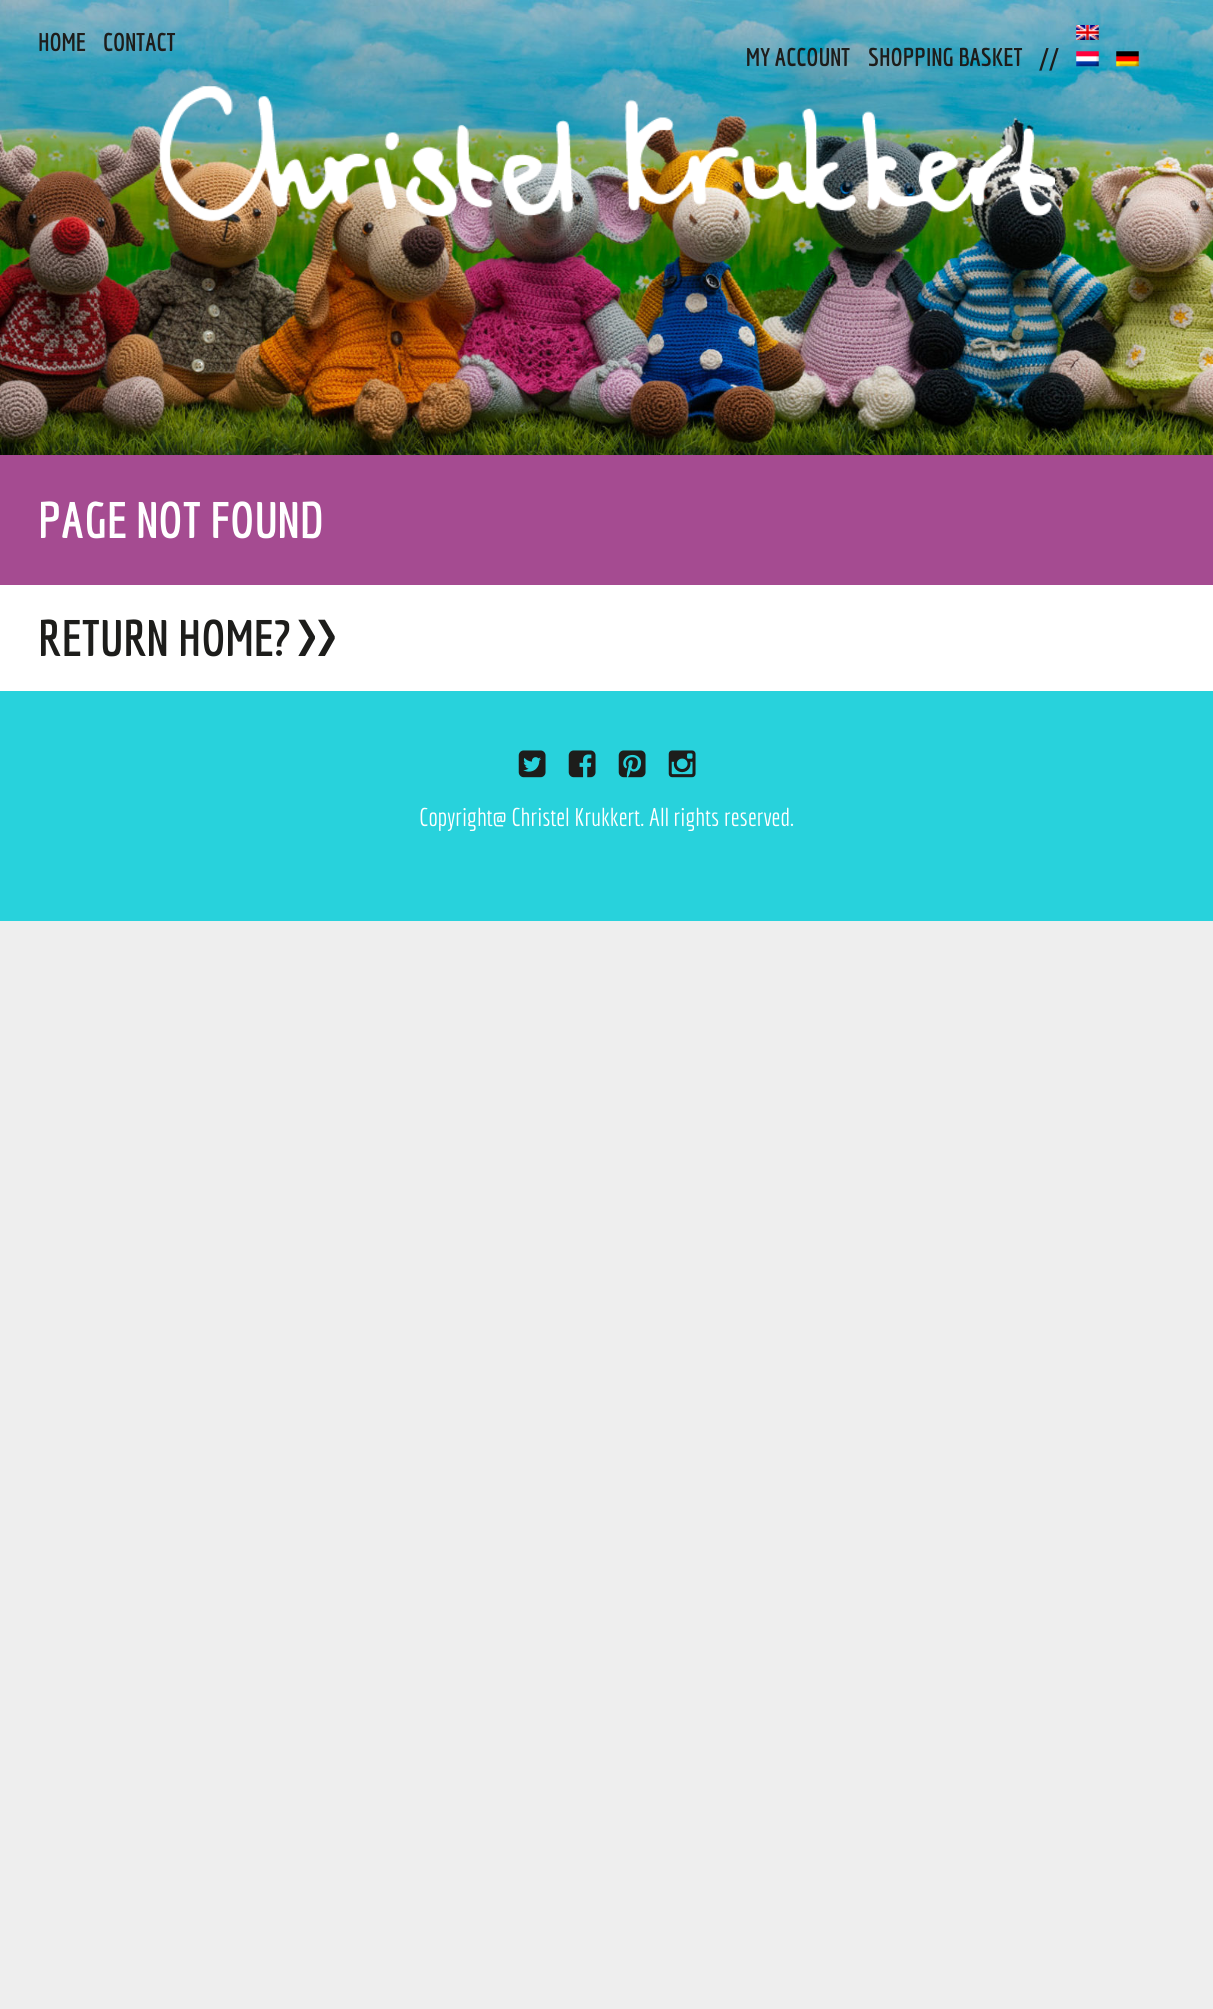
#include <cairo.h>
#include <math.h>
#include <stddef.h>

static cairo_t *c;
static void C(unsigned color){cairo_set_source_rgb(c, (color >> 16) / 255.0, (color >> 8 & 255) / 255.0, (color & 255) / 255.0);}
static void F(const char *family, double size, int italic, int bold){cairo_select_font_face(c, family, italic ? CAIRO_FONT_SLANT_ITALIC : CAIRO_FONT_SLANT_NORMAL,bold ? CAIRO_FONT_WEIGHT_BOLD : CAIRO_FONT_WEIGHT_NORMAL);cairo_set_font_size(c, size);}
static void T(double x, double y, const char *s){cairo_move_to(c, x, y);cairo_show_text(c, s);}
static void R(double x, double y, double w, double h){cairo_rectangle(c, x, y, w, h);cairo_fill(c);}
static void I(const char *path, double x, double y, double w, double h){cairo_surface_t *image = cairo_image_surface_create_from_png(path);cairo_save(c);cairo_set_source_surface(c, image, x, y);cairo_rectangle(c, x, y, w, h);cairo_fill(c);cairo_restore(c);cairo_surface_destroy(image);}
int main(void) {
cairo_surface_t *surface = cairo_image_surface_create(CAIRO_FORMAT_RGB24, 1213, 2009);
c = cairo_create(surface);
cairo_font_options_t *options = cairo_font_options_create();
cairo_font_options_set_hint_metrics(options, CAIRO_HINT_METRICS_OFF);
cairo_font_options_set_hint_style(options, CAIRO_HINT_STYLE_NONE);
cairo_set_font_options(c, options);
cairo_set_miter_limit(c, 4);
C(0xeeeeee);
cairo_paint(c);
C(0xffffff);
R(0,585,1213,106);
I("1.png",0,0,1213,455);
F("Economica",25,0,1);
C(0x1d1d1b);
T(38,51,"HOME");
T(103,51,"CONTACT");
T(746,66,"MY ACCOUNT");
T(868,66,"SHOPPING BASKET");
T(1039,66,"//");
I("2.png",1076,25,23,15);
I("3.png",1076,51,23,16);
I("4.png",1116,51,23,16);
I("5.png",158,86,897,136);
C(0xa54b91);
R(0,455,1213,130);
F("Economica",50,0,1);
C(0xffffff);
T(38,538,"PAGE NOT FOUND");
C(0x1d1d1b);
T(38,656,"RETURN HOME?");
F("Economica",75,0,1);
T(296,660,">>");
C(0x28d2dc);
R(0,691,1213,230);
I("6.png",518,750,28,28);
I("7.png",568,750,28,28);
I("8.png",618,750,28,28);
I("9.png",668,750,28,28);
F("Economica",25,0,0);
C(0xffffff);
T(419,826,"Copyright@ Christel Krukkert. All rights reserved.");
cairo_surface_write_to_png(surface, "o.png");
cairo_font_options_destroy(options);
cairo_destroy(c);
cairo_surface_destroy(surface);
return 0;
}
